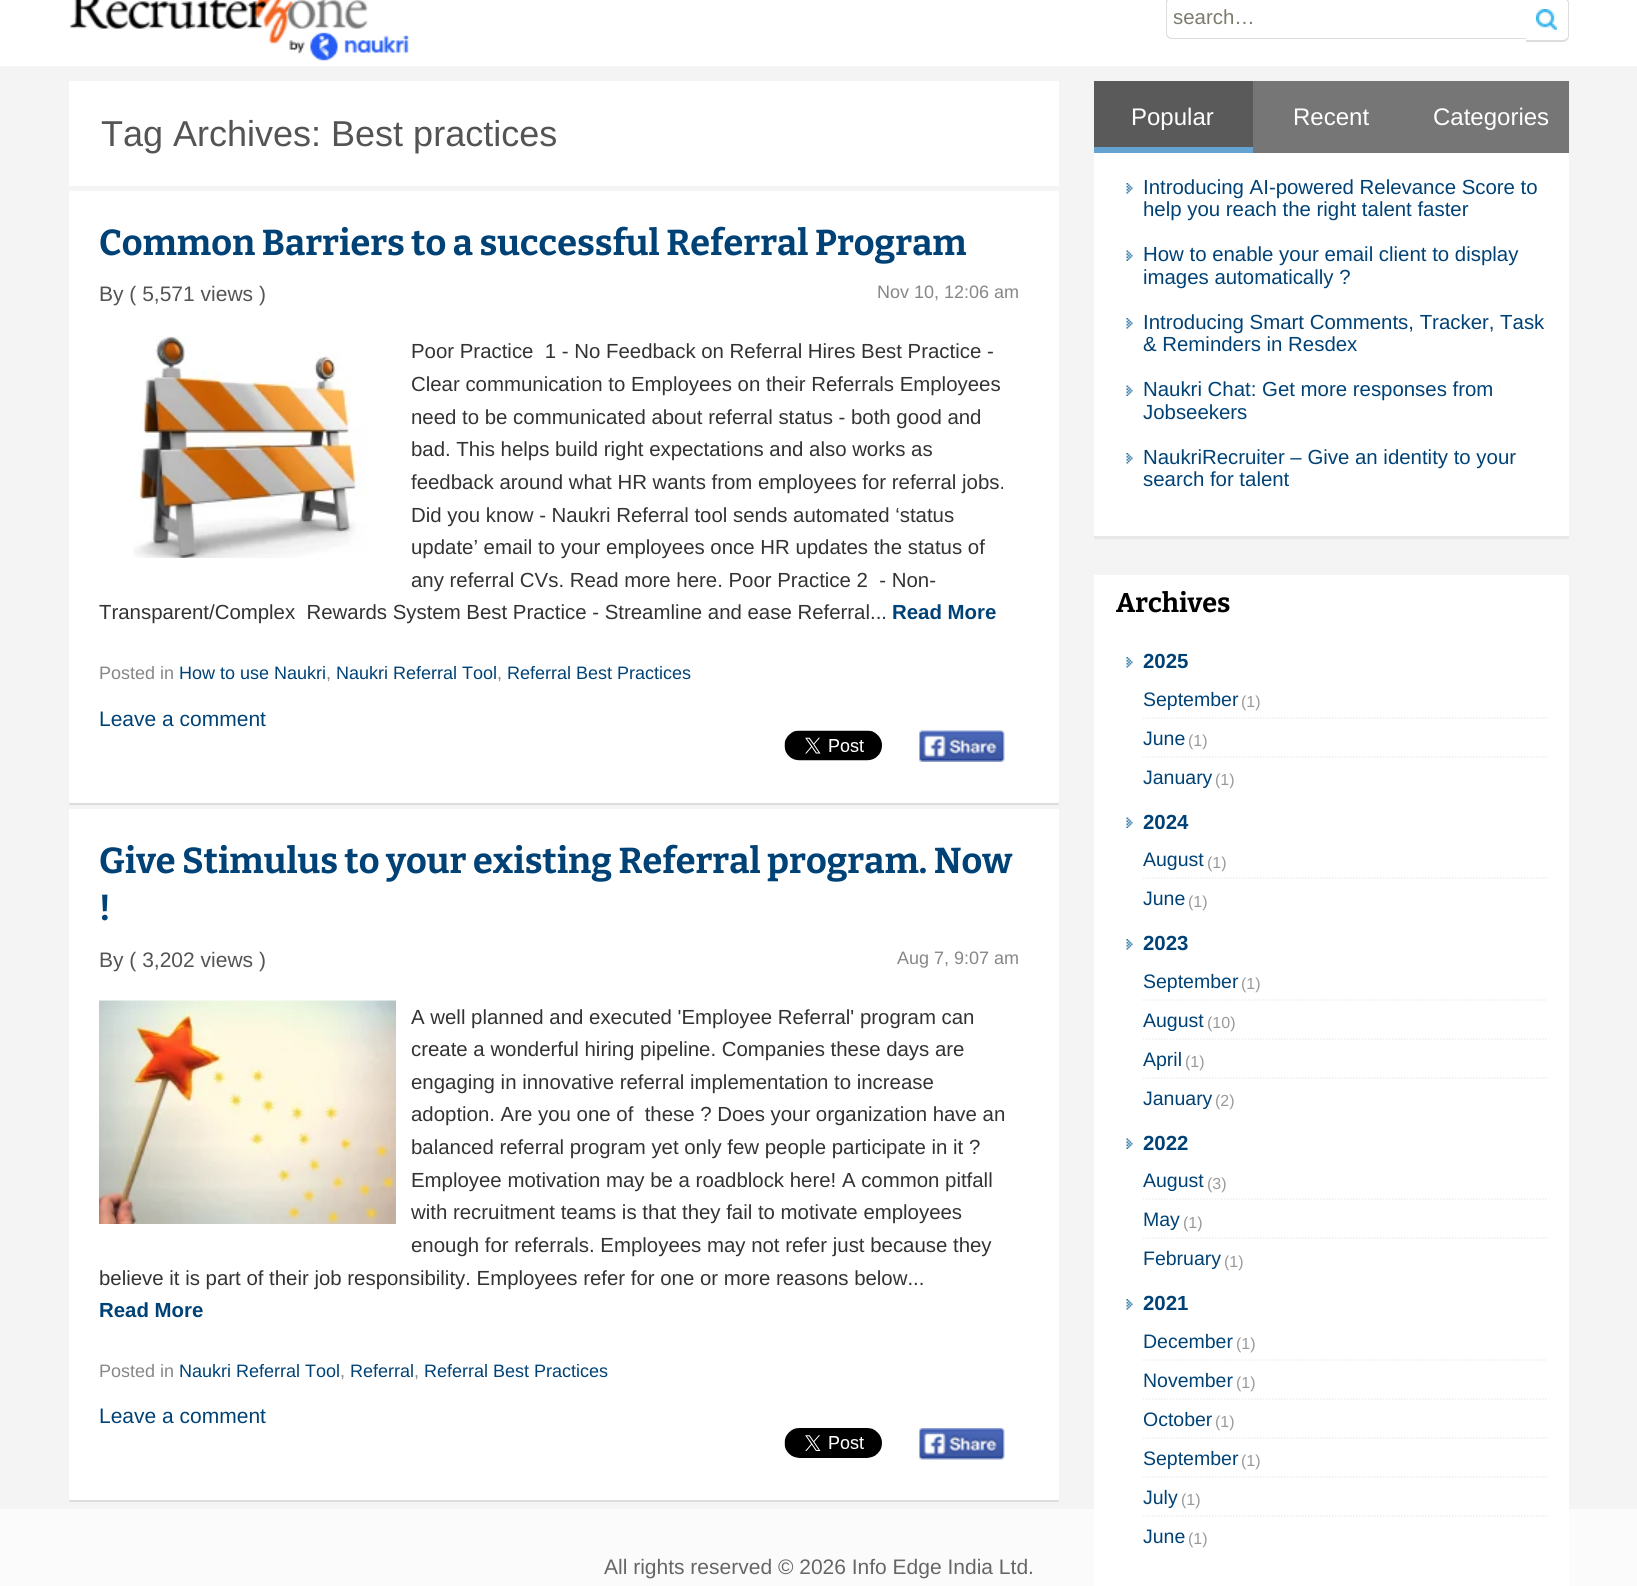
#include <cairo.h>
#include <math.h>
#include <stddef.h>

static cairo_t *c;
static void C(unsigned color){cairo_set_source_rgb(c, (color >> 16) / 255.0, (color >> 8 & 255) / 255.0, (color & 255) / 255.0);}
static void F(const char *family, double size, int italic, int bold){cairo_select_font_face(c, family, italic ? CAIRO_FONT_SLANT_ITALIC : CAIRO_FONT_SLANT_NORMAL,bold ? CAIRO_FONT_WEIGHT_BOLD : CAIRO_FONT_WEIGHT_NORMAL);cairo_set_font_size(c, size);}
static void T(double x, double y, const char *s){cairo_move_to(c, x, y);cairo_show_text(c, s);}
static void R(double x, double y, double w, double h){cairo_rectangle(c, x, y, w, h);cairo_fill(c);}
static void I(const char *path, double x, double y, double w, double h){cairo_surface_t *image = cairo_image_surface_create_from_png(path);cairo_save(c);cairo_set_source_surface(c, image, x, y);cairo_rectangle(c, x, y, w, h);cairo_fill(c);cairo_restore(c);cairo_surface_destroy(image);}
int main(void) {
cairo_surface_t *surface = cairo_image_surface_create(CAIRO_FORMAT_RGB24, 1637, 1586);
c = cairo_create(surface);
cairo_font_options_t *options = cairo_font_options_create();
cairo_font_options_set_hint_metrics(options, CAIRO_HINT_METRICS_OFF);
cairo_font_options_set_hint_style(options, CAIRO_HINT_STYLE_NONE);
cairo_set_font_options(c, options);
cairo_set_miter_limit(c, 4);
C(0xf4f4f4);
cairo_paint(c);
C(0xffffff);
R(0,0,1637,66);
I("1.png",69,0,340,61);
C(0xdddddd);
cairo_set_fill_rule(c,CAIRO_FILL_RULE_EVEN_ODD);
cairo_new_path(c);
cairo_move_to(c,1172,-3);
cairo_line_to(c,1526,-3);
cairo_line_to(c,1526,39);
cairo_line_to(c,1172,39);
cairo_curve_to(c,1168,39,1166,36,1166,33);
cairo_line_to(c,1166,3);
cairo_curve_to(c,1166,0,1168,-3,1172,-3);
cairo_close_path(c);
cairo_move_to(c,1172,-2);
cairo_line_to(c,1526,-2);
cairo_line_to(c,1526,38);
cairo_line_to(c,1172,38);
cairo_curve_to(c,1169,38,1167,35,1167,33);
cairo_line_to(c,1167,3);
cairo_curve_to(c,1167,1,1169,-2,1172,-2);
cairo_close_path(c);
cairo_fill(c);
F("Liberation Sans",20.4,0,0);
C(0x7d7b6d);
T(1173,24,"search…");
C(0xdddddd);
cairo_new_path(c);
cairo_move_to(c,1526,-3);
cairo_line_to(c,1563,-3);
cairo_curve_to(c,1566,-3,1569,0,1569,3);
cairo_line_to(c,1569,36);
cairo_curve_to(c,1569,39,1566,42,1563,42);
cairo_line_to(c,1526,42);
cairo_close_path(c);
cairo_move_to(c,1526,-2);
cairo_line_to(c,1563,-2);
cairo_curve_to(c,1565,-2,1568,1,1568,3);
cairo_line_to(c,1568,36);
cairo_curve_to(c,1568,38,1565,40,1563,40);
cairo_line_to(c,1526,40);
cairo_close_path(c);
cairo_fill(c);
I("2.png",1536,9,21,21);
C(0xffffff);
R(69,81,990,105);
F("Liberation Sans",36,0,0);
C(0x545454);
T(101,146,"Tag Archives: Best practices");
C(0xffffff);
R(69,191,990,612);
C(0xdddddd);
R(69,803,990,2);
F("Bitter",36,0,1);
C(0x004276);
T(99,255,"Common Barriers to a successful Referral Program");
F("Liberation Sans",21,0,0);
C(0x545454);
T(99,301,"By ( 5,571 views )");
F("Liberation Sans",18,0,0);
C(0x878787);
T(877,298,"Nov 10, 12:06 am");
I("3.png",133,336,235,222);
F("Liberation Sans",20.4,0,0);
C(0x333333);
T(411,358,"Poor Practice  1 - No Feedback on Referral Hires Best Practice -");
T(411,391,"Clear communication to Employees on their Referrals Employees");
T(411,424,"need to be communicated about referral status - both good and");
T(411,456,"bad. This helps build right expectations and also works as");
T(411,489,"feedback around what HR wants from employees for referral jobs.");
T(411,522,"Did you know - Naukri Referral tool sends automated ‘status");
T(411,554,"update’ email to your employees once HR updates the status of");
T(411,587,"any referral CVs. Read more here. Poor Practice 2  - Non-");
T(99,619,"Transparent/Complex  Rewards System Best Practice - Streamline and ease Referral...");
F("Liberation Sans",20.4,0,1);
C(0x004276);
T(892,619,"Read More");
F("Liberation Sans",18,0,0);
C(0x878787);
T(99,679,"Posted in");
C(0x004276);
T(179,679,"How to use Naukri");
C(0x878787);
T(326,679,",");
C(0x004276);
T(336,679,"Naukri Referral Tool");
C(0x878787);
T(497,679,",");
C(0x004276);
T(507,679,"Referral Best Practices");
F("Liberation Sans",21,0,0);
T(99,726,"Leave a comment");
I("4.png",784,730,98,31);
I("5.png",919,730,86,32);
C(0xffffff);
R(69,809,990,691);
C(0xdddddd);
R(69,1500,990,2);
F("Bitter",36,0,1);
C(0x004276);
T(99,873,"Give Stimulus to your existing Referral program. Now");
T(99,920,"!");
F("Liberation Sans",21,0,0);
C(0x545454);
T(99,967,"By ( 3,202 views )");
F("Liberation Sans",18,0,0);
C(0x878787);
T(897,964,"Aug 7, 9:07 am");
I("6.png",99,1000,297,224);
F("Liberation Sans",20.4,0,0);
C(0x333333);
T(411,1024,"A well planned and executed 'Employee Referral' program can");
T(411,1056,"create a wonderful hiring pipeline. Companies these days are");
T(411,1089,"engaging in innovative referral implementation to increase");
T(411,1121,"adoption. Are you one of  these ? Does your organization have an");
T(411,1154,"balanced referral program yet only few people participate in it ?");
T(411,1187,"Employee motivation may be a roadblock here! A common pitfall");
T(411,1219,"with recruitment teams is that they fail to motivate employees");
T(411,1252,"enough for referrals. Employees may not refer just because they");
T(99,1285,"believe it is part of their job responsibility. Employees refer for one or more reasons below...");
F("Liberation Sans",20.4,0,1);
C(0x004276);
T(99,1317,"Read More");
F("Liberation Sans",18,0,0);
C(0x878787);
T(99,1377,"Posted in");
C(0x004276);
T(179,1377,"Naukri Referral Tool");
C(0x878787);
T(340,1377,",");
C(0x004276);
T(350,1377,"Referral");
C(0x878787);
T(414,1377,",");
C(0x004276);
T(424,1377,"Referral Best Practices");
F("Liberation Sans",21,0,0);
T(99,1423,"Leave a comment");
I("7.png",784,1428,98,30);
I("8.png",919,1428,86,32);
C(0xffffff);
R(1094,153,475,383);
C(0xe7e7e7);
R(1094,536,475,3);
C(0x5b5a5a);
R(1094,81,159,66);
C(0x65a3d1);
R(1094,147,159,6);
F("Liberation Sans",24,0,0);
C(0xffffff);
T(1131,125,"Popular");
C(0x777676);
R(1253,81,316,72);
C(0xffffff);
T(1293,125,"Recent");
T(1433,125,"Categories");
I("9.png",1126,183,7,11);
F("Liberation Sans",20.4,0,0);
C(0x004276);
T(1143,194,"Introducing AI-powered Relevance Score to");
T(1143,216,"help you reach the right talent faster");
I("10.png",1126,250,7,11);
T(1143,261,"How to enable your email client to display");
T(1143,284,"images automatically ?");
I("9.png",1126,318,7,11);
T(1143,329,"Introducing Smart Comments, Tracker, Task");
T(1143,351,"& Reminders in Resdex");
I("10.png",1126,385,7,11);
T(1143,396,"Naukri Chat: Get more responses from");
T(1143,419,"Jobseekers");
I("9.png",1126,453,7,11);
T(1143,464,"NaukriRecruiter – Give an identity to your");
T(1143,486,"search for talent");
C(0xfbfbfb);
R(0,1509,1637,77);
C(0xffffff);
R(1094,575,475,1011);
F("Bitter",27,0,1);
C(0x000000);
T(1116,612,"Archives");
I("9.png",1126,657,7,11);
F("Liberation Sans",20.4,0,1);
C(0x004276);
T(1143,668,"2025");
cairo_new_path(c);
cairo_move_to(c,1143,718);
cairo_line_to(c,1546.5,718);
C(0xeeeeee);
cairo_set_line_width(c,1.5);
cairo_set_dash(c,(double[]){1.5,1.5},2,0);
cairo_stroke(c);
F("Liberation Sans",19.5,0,0);
C(0x004276);
T(1143,706,"September");
F("Liberation Sans",16,0,0);
C(0x999999);
T(1241,707,"(1)");
cairo_new_path(c);
cairo_move_to(c,1143,757);
cairo_line_to(c,1546.5,757);
C(0xeeeeee);
cairo_stroke(c);
F("Liberation Sans",19.5,0,0);
C(0x004276);
T(1143,745,"June");
F("Liberation Sans",16,0,0);
C(0x999999);
T(1188,746,"(1)");
F("Liberation Sans",19.5,0,0);
C(0x004276);
T(1143,784,"January");
F("Liberation Sans",16,0,0);
C(0x999999);
T(1215,785,"(1)");
I("10.png",1126,817,7,11);
F("Liberation Sans",20.4,0,1);
C(0x004276);
T(1143,829,"2024");
cairo_new_path(c);
cairo_move_to(c,1143,878);
cairo_line_to(c,1546.5,878);
C(0xeeeeee);
cairo_stroke(c);
F("Liberation Sans",19.5,0,0);
C(0x004276);
T(1143,866,"August");
F("Liberation Sans",16,0,0);
C(0x999999);
T(1207,868,"(1)");
F("Liberation Sans",19.5,0,0);
C(0x004276);
T(1143,905,"June");
F("Liberation Sans",16,0,0);
C(0x999999);
T(1188,907,"(1)");
I("9.png",1126,939,7,11);
F("Liberation Sans",20.4,0,1);
C(0x004276);
T(1143,950,"2023");
cairo_new_path(c);
cairo_move_to(c,1143,1000);
cairo_line_to(c,1546.5,1000);
C(0xeeeeee);
cairo_stroke(c);
F("Liberation Sans",19.5,0,0);
C(0x004276);
T(1143,988,"September");
F("Liberation Sans",16,0,0);
C(0x999999);
T(1241,989,"(1)");
cairo_new_path(c);
cairo_move_to(c,1143,1039);
cairo_line_to(c,1546.5,1039);
C(0xeeeeee);
cairo_stroke(c);
F("Liberation Sans",19.5,0,0);
C(0x004276);
T(1143,1027,"August");
F("Liberation Sans",16,0,0);
C(0x999999);
T(1207,1028,"(10)");
cairo_new_path(c);
cairo_move_to(c,1143,1078);
cairo_line_to(c,1546.5,1078);
C(0xeeeeee);
cairo_stroke(c);
F("Liberation Sans",19.5,0,0);
C(0x004276);
T(1143,1066,"April");
F("Liberation Sans",16,0,0);
C(0x999999);
T(1185,1067,"(1)");
F("Liberation Sans",19.5,0,0);
C(0x004276);
T(1143,1105,"January");
F("Liberation Sans",16,0,0);
C(0x999999);
T(1215,1106,"(2)");
I("10.png",1126,1138,7,11);
F("Liberation Sans",20.4,0,1);
C(0x004276);
T(1143,1150,"2022");
cairo_new_path(c);
cairo_move_to(c,1143,1199);
cairo_line_to(c,1546.5,1199);
C(0xeeeeee);
cairo_stroke(c);
F("Liberation Sans",19.5,0,0);
C(0x004276);
T(1143,1187,"August");
F("Liberation Sans",16,0,0);
C(0x999999);
T(1207,1189,"(3)");
cairo_new_path(c);
cairo_move_to(c,1143,1238);
cairo_line_to(c,1546.5,1238);
C(0xeeeeee);
cairo_stroke(c);
F("Liberation Sans",19.5,0,0);
C(0x004276);
T(1143,1226,"May");
F("Liberation Sans",16,0,0);
C(0x999999);
T(1183,1228,"(1)");
F("Liberation Sans",19.5,0,0);
C(0x004276);
T(1143,1265,"February");
F("Liberation Sans",16,0,0);
C(0x999999);
T(1224,1267,"(1)");
I("9.png",1126,1299,7,11);
F("Liberation Sans",20.4,0,1);
C(0x004276);
T(1143,1310,"2021");
cairo_new_path(c);
cairo_move_to(c,1143,1360);
cairo_line_to(c,1546.5,1360);
C(0xeeeeee);
cairo_stroke(c);
F("Liberation Sans",19.5,0,0);
C(0x004276);
T(1143,1348,"December");
F("Liberation Sans",16,0,0);
C(0x999999);
T(1236,1349,"(1)");
cairo_new_path(c);
cairo_move_to(c,1143,1399);
cairo_line_to(c,1546.5,1399);
C(0xeeeeee);
cairo_stroke(c);
F("Liberation Sans",19.5,0,0);
C(0x004276);
T(1143,1387,"November");
F("Liberation Sans",16,0,0);
C(0x999999);
T(1236,1388,"(1)");
cairo_new_path(c);
cairo_move_to(c,1143,1438);
cairo_line_to(c,1546.5,1438);
C(0xeeeeee);
cairo_stroke(c);
F("Liberation Sans",19.5,0,0);
C(0x004276);
T(1143,1426,"October");
F("Liberation Sans",16,0,0);
C(0x999999);
T(1215,1427,"(1)");
cairo_new_path(c);
cairo_move_to(c,1143,1477);
cairo_line_to(c,1546.5,1477);
C(0xeeeeee);
cairo_stroke(c);
F("Liberation Sans",19.5,0,0);
C(0x004276);
T(1143,1465,"September");
F("Liberation Sans",16,0,0);
C(0x999999);
T(1241,1466,"(1)");
cairo_new_path(c);
cairo_move_to(c,1143,1516);
cairo_line_to(c,1546.5,1516);
C(0xeeeeee);
cairo_stroke(c);
F("Liberation Sans",19.5,0,0);
C(0x004276);
T(1143,1504,"July");
F("Liberation Sans",16,0,0);
C(0x999999);
T(1181,1505,"(1)");
F("Liberation Sans",19.5,0,0);
C(0x004276);
T(1143,1543,"June");
F("Liberation Sans",16,0,0);
C(0x999999);
T(1188,1544,"(1)");
F("Liberation Sans",21,0,0);
C(0x666666);
T(604,1574,"All rights reserved © 2026 Info Edge India Ltd.");
cairo_surface_write_to_png(surface, "o.png");
cairo_font_options_destroy(options);
cairo_destroy(c);
cairo_surface_destroy(surface);
return 0;
}
